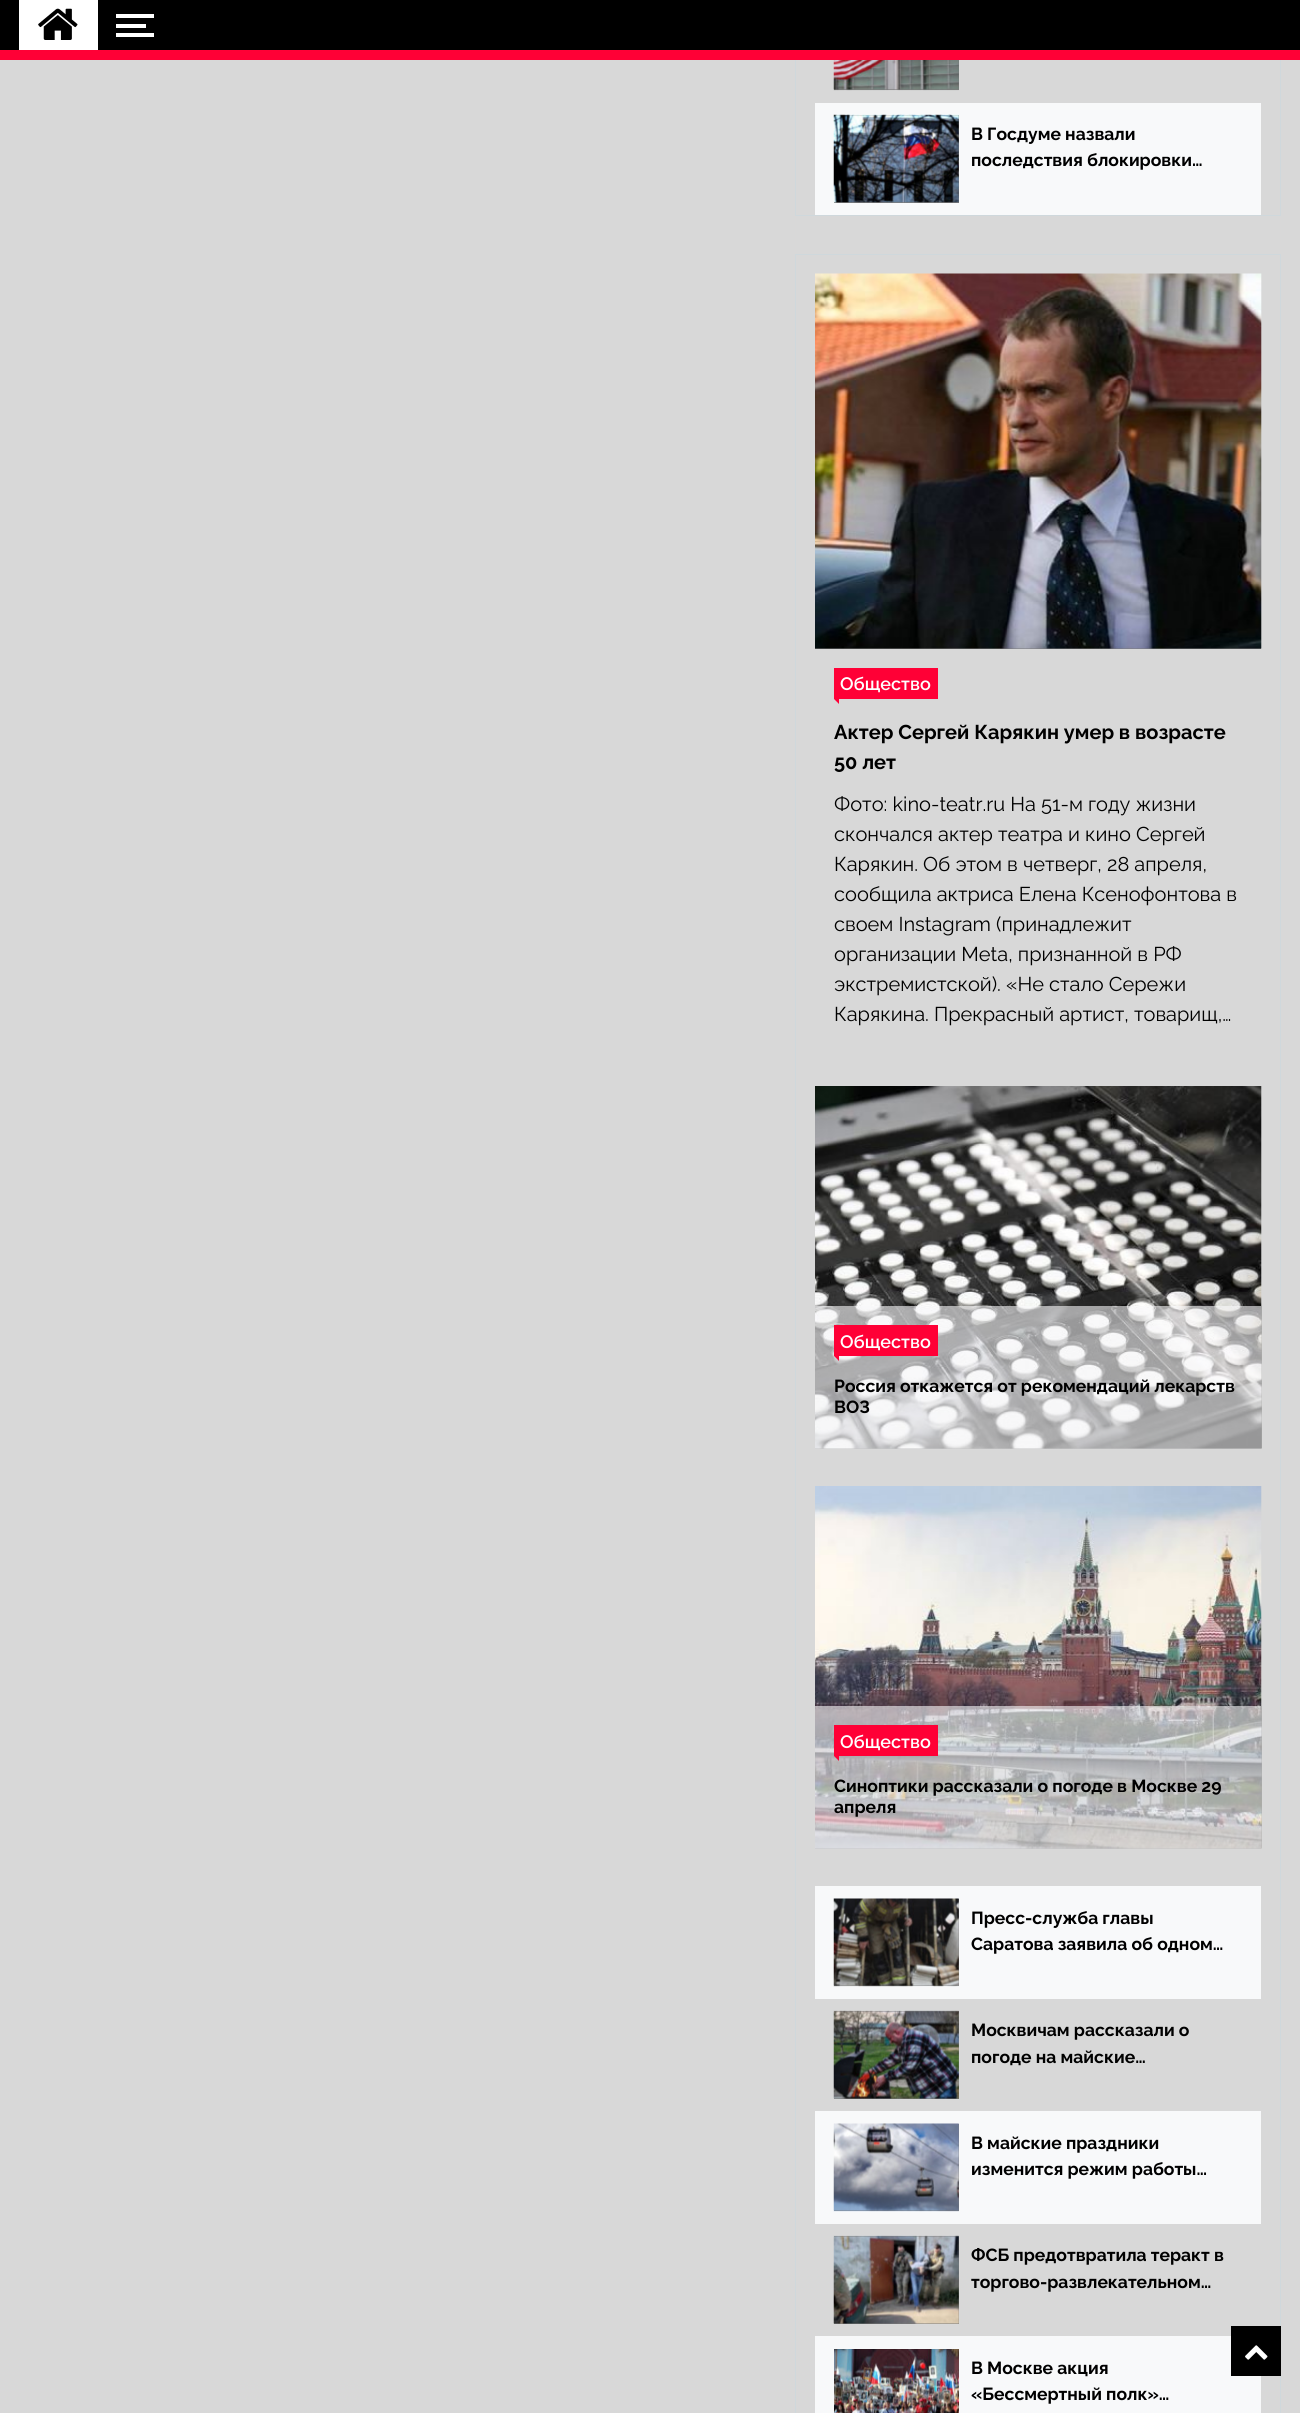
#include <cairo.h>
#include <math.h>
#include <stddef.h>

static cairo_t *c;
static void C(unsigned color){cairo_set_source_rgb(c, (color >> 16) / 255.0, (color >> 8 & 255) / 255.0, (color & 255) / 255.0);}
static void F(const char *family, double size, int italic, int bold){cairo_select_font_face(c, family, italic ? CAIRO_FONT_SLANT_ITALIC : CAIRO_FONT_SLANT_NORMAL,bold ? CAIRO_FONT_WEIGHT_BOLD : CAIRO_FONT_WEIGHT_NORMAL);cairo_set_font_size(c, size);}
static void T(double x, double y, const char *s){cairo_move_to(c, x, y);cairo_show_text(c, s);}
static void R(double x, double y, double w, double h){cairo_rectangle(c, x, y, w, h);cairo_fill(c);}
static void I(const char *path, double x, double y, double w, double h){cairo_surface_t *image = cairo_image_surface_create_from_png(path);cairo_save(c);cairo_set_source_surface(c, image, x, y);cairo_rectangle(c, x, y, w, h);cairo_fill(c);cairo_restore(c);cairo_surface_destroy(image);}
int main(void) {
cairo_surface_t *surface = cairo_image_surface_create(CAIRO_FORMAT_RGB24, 1300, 2413);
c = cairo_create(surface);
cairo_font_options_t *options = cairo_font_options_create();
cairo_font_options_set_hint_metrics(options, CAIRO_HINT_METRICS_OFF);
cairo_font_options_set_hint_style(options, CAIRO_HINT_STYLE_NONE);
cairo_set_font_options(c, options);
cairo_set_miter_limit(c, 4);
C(0xd8d8d8);
cairo_paint(c);
cairo_rectangle(c,795.5,-.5,485,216);
C(0xcfd8dc);
cairo_set_line_width(c,1);
cairo_stroke(c);
C(0x000000);
R(0,0,1300,50);
C(0xffffff);
R(19,0,79,50);
I("1.png",38,8,40,32);
R(116,14,38,4);
R(116,33,38,4);
R(116,24,30,4);
C(0xff0036);
R(0,50,1300,10);
C(0x7b7b7b);
R(834,60,125,30);
I("2.png",833,60,126,31);
C(0xf8f9fa);
R(815,103,446,112);
C(0x7b7b7b);
R(834,115,125,88);
I("3.png",833,114,126,89);
F("Raleway",17.5,0,1);
C(0x000000);
T(971,140,"В Госдуме назвали");
T(971,166,"последствия блокировки…");
cairo_rectangle(c,795.5,254.5,485,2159);
C(0xcfd8dc);
cairo_stroke(c);
C(0x7b7b7b);
R(815,648,446,1);
I("4.png",815,273,447,376);
C(0xff0036);
R(834,668,104,31);
F("Raleway SemiBold",18,0,0);
C(0xffffff);
T(840,690,"Общество");
C(0xff0036);
cairo_new_path(c);
cairo_move_to(c,839,699);
cairo_line_to(c,839,704);
cairo_line_to(c,834,699);
cairo_close_path(c);
cairo_fill(c);
F("Raleway",20,0,1);
C(0x000000);
T(834,739,"Актер Сергей Карякин умер в возрасте");
T(834,769,"50 лет");
F("Raleway",20,0,0);
T(834,811,"Фото: kino-teatr.ru На 51-м году жизни");
T(834,841,"скончался актер театра и кино Сергей");
T(834,871,"Карякин. Об этом в четверг, 28 апреля,");
T(834,901,"сообщила актриса Елена Ксенофонтова в");
T(834,931,"своем Instagram (принадлежит");
T(834,961,"организации Meta, признанной в РФ");
T(834,991,"экстремистской). «Не стало Сережи");
T(834,1021,"Карякина. Прекрасный артист, товарищ,…");
C(0x7b7b7b);
R(815,1448,446,1);
I("5.png",815,1086,447,363);
cairo_set_source_rgba(c,0.973,0.976,0.98,0.6);
R(815,1306,446,143);
C(0xff0036);
R(834,1325,104,31);
F("Raleway SemiBold",18,0,0);
C(0xffffff);
T(840,1348,"Общество");
C(0xff0036);
cairo_new_path(c);
cairo_move_to(c,839,1356);
cairo_line_to(c,839,1361);
cairo_line_to(c,834,1356);
cairo_close_path(c);
cairo_fill(c);
F("Raleway",17.5,0,1);
C(0x000000);
T(834,1392,"Россия откажется от рекомендаций лекарств");
T(834,1413,"ВОЗ");
C(0x7b7b7b);
R(815,1848,446,1);
I("6.png",815,1486,447,363);
cairo_set_source_rgba(c,0.973,0.976,0.98,0.6);
R(815,1706,446,143);
C(0xff0036);
R(834,1725,104,31);
F("Raleway SemiBold",18,0,0);
C(0xffffff);
T(840,1748,"Общество");
C(0xff0036);
cairo_new_path(c);
cairo_move_to(c,839,1756);
cairo_line_to(c,839,1761);
cairo_line_to(c,834,1756);
cairo_close_path(c);
cairo_fill(c);
F("Raleway",17.5,0,1);
C(0x000000);
T(834,1792,"Синоптики рассказали о погоде в Москве 29");
T(834,1813,"апреля");
C(0xf8f9fa);
R(815,1886,446,113);
C(0x7b7b7b);
R(834,1899,125,87);
I("7.png",833,1898,126,89);
C(0x000000);
T(971,1924,"Пресс-служба главы");
T(971,1950,"Саратова заявила об одном…");
C(0x7b7b7b);
R(834,2011,125,88);
I("8.png",833,2010,126,89);
C(0x000000);
T(971,2036,"Москвичам рассказали о");
T(971,2063,"погоде на майские…");
C(0xf8f9fa);
R(815,2111,446,113);
C(0x7b7b7b);
R(834,2124,125,87);
I("9.png",833,2123,126,89);
C(0x000000);
T(971,2149,"В майские праздники");
T(971,2175,"изменится режим работы…");
C(0x7b7b7b);
R(834,2236,125,88);
I("10.png",833,2235,126,89);
C(0x000000);
T(971,2261,"ФСБ предотвратила теракт в");
T(971,2288,"торгово-развлекательном…");
C(0xf8f9fa);
R(815,2336,446,77);
I("11.png",834,2349,125,64);
C(0x000000);
T(971,2374,"В Москве акция");
T(971,2400,"«Бессмертный полк»…");
R(1231,2326,50,50);
I("12.png",1245,2345,23,15);
cairo_surface_write_to_png(surface, "o.png");
cairo_font_options_destroy(options);
cairo_destroy(c);
cairo_surface_destroy(surface);
return 0;
}
